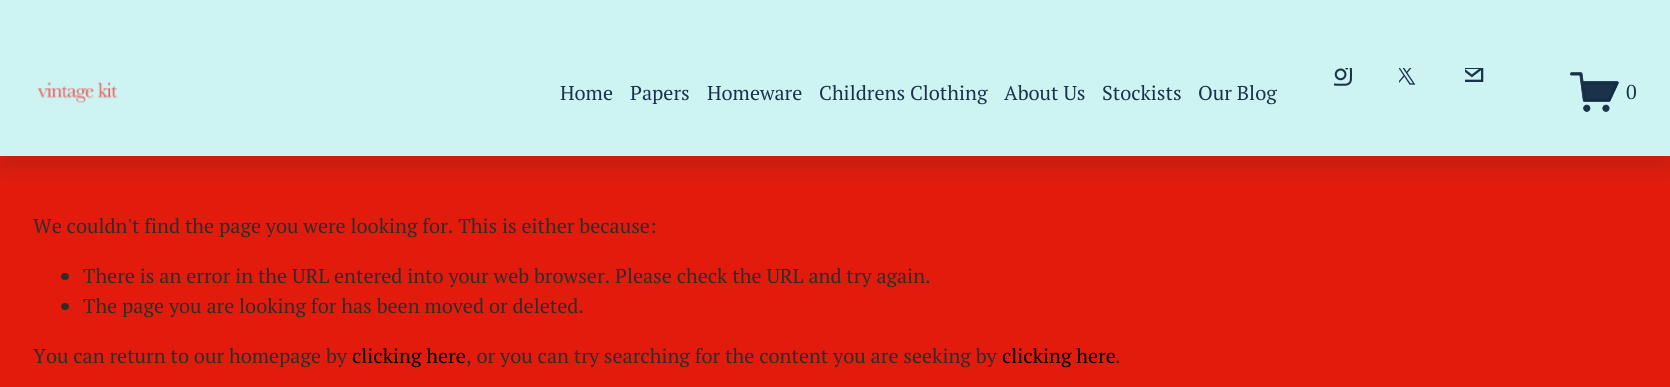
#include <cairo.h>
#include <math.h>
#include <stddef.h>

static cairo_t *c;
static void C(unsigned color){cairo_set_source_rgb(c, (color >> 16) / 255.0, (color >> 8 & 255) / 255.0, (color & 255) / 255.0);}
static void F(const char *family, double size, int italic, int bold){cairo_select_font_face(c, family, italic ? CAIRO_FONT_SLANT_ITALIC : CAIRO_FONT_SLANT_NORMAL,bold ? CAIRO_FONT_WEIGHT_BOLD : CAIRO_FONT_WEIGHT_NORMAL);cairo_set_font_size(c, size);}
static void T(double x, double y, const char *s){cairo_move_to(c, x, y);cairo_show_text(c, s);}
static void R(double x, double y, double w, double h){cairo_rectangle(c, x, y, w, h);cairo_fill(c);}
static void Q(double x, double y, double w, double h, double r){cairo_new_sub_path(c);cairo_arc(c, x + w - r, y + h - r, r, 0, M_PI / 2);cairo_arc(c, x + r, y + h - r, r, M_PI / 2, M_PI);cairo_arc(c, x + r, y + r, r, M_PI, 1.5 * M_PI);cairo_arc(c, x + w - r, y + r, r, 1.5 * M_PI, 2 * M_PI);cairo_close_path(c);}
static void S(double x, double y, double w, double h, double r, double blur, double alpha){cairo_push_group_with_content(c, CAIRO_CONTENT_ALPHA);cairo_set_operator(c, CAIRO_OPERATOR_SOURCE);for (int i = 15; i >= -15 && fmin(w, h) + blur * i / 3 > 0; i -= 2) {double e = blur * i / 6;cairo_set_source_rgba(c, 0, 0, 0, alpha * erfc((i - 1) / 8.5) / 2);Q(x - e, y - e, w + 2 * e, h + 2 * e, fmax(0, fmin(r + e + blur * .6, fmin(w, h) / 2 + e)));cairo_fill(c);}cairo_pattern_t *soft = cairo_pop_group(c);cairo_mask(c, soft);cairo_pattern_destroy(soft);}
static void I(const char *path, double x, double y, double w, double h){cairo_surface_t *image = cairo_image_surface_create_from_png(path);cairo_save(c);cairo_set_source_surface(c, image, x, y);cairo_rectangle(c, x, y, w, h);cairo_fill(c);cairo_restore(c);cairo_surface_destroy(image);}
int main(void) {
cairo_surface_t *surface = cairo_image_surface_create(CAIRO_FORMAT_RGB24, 1670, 387);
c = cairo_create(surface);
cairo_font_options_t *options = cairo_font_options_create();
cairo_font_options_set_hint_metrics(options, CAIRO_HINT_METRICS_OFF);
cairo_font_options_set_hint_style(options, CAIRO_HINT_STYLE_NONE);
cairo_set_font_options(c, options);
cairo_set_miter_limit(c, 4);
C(0xe31b0d);
cairo_paint(c);
C(0xc81e11);
S(0,15,1670,156,0,7.5,1);
C(0xcdf4f2);
R(0,0,1670,156);
I("1.png",37,82,81,21);
F("PT Serif",20,0,0);
C(0x1a334b);
T(560,100,"Home");
T(630,100,"Papers");
T(707,100,"Homeware");
T(819,100,"Childrens Clothing");
T(1004,100,"About Us");
T(1102,100,"Stockists");
T(1198,100,"Our Blog");
I("2.png",1334,68,19,18);
I("3.png",1399,68,17,17);
I("4.png",1465,68,19,14);
I("5.png",1570,72,49,40);
T(1626,99,"0");
C(0x2d2d2a);
T(33,233,"We couldn't find the page you were looking for. This is either because:");
Q(61,273,8,7,3.5);
cairo_fill(c);
T(83,283,"There is an error in the URL entered into your web browser. Please check the URL and try again.");
Q(61,303,8,7,3.5);
cairo_fill(c);
T(83,313,"The page you are looking for has been moved or deleted.");
T(33,363,"You can return to our homepage by");
C(0x000000);
T(352,363,"clicking here");
C(0x2d2d2a);
T(466,363,", or you can try searching for the content you are seeking by");
C(0x000000);
T(1002,363,"clicking here");
C(0x2d2d2a);
T(1115,363,".");
cairo_surface_write_to_png(surface, "o.png");
cairo_font_options_destroy(options);
cairo_destroy(c);
cairo_surface_destroy(surface);
return 0;
}
